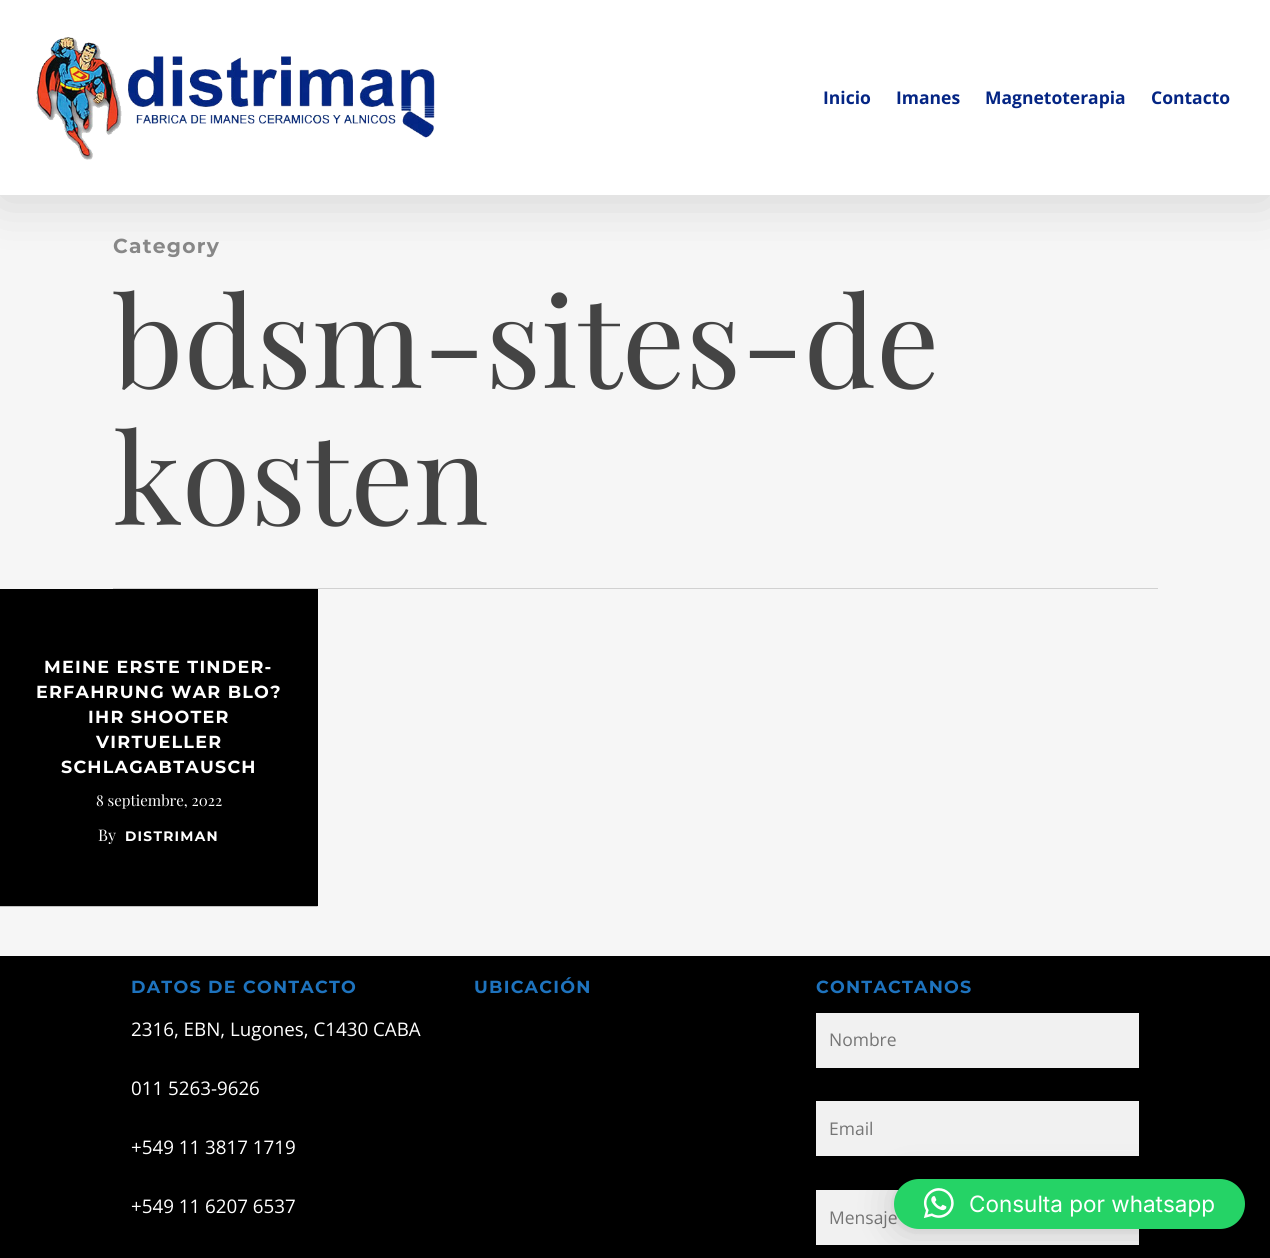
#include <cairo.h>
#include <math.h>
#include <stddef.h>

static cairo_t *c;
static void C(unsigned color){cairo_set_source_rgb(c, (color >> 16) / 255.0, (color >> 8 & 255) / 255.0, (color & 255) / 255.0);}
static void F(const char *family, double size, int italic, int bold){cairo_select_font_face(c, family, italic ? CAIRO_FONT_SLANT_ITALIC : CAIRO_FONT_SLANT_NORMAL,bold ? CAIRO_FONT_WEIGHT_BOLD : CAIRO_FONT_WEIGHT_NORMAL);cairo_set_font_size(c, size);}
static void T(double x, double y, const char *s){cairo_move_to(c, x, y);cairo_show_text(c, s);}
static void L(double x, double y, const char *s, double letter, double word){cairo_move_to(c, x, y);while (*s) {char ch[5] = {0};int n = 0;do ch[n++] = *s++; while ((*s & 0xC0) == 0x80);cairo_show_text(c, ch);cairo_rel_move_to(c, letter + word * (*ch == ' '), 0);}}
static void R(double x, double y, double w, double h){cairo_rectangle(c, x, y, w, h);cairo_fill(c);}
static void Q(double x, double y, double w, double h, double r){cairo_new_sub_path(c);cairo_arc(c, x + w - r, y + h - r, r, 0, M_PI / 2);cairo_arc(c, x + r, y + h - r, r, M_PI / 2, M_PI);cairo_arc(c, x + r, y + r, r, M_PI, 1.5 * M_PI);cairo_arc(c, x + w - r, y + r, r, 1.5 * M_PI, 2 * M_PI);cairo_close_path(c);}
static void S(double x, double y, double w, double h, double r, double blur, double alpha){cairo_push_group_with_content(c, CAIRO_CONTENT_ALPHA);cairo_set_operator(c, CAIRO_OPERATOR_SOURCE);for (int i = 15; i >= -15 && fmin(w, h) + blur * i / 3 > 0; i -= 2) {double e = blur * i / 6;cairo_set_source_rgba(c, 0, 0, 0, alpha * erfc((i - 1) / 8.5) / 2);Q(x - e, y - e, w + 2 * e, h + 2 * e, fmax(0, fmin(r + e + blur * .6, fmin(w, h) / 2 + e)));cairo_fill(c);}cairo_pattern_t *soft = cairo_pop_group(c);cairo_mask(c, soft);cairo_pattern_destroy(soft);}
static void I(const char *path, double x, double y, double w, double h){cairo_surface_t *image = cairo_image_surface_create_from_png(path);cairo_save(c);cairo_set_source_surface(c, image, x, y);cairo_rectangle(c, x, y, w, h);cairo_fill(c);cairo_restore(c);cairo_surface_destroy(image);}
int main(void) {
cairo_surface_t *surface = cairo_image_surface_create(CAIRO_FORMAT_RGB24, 1270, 1258);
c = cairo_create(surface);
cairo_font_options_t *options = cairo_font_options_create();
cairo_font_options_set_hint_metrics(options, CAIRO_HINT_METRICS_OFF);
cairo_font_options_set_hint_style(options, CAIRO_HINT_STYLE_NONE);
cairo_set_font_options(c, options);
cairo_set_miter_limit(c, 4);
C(0xf6f6f6);
cairo_paint(c);
C(0x000000);
S(0,4,1270,195,0,28,.15);
C(0xffffff);
R(0,0,1270,195);
I("1.png",36,37,399,123);
F("Open Sans",17.5,0,1);
C(0x042584);
T(823,104,"Inicio");
T(896,104,"Imanes");
T(985,104,"Magnetoterapia");
T(1151,104,"Contacto");
C(0xd1d1d1);
R(113,588,1045,1);
F("Montserrat Thin",20.25,0,0);
C(0x878787);
L(113,253,"Category",1.25,0);
F("Playfair Display",125,0,0);
C(0x444444);
T(113,388,"bdsm-sites-de");
T(113,525,"kosten");
C(0x000000);
R(0,589,318,317);
I("2.png",0,906,318,1);
F("Montserrat Thin",17.5,0,0);
C(0xffffff);
L(44,673,"MEINE ERSTE TINDER-",1.25,0);
L(36,698,"ERFAHRUNG WAR BLO?",1.25,0);
L(88,723,"IHR SHOOTER",1.25,0);
L(96,748,"VIRTUELLER",1.25,0);
L(61,773,"SCHLAGABTAUSCH",1.25,0);
F("Playfair Display",15,0,0);
T(96,806,"8 septiembre, 2022");
F("Playfair Display",16,0,0);
T(98,841,"By");
F("Montserrat Thin",13.75,0,0);
L(125,841,"DISTRIMAN",1.25,0);
C(0x000000);
R(0,956,1270,302);
F("Montserrat Thin",17.5,0,0);
C(0x1e73be);
L(131,993,"DATOS DE CONTACTO",1.25,0);
F("Open Sans",18.75,0,0);
C(0xffffff);
T(131,1036,"2316, EBN, Lugones, C1430 CABA");
T(131,1095,"011 5263-9626");
T(131,1154,"+549 11 3817 1719");
T(131,1213,"+549 11 6207 6537");
F("Montserrat Thin",17.5,0,0);
C(0x1e73be);
L(474,993,"UBICACIÓN",1.25,0);
L(816,993,"CONTACTANOS",1.25,0);
C(0xf1f1f1);
R(816,1013,323,55);
F("Open Sans",17.5,0,0);
C(0x757575);
T(829,1046,"Nombre");
C(0xf1f1f1);
R(816,1101,323,55);
C(0x757575);
T(829,1135,"Email");
C(0xf1f1f1);
R(816,1190,323,55);
C(0x757575);
T(829,1224,"Mensaje");
C(0x000000);
S(894,1181,351,50,25,20,.16);
S(894,1180,351,50,25,4,.06);
C(0x25d366);
Q(894,1179,351,50,25);
cairo_fill(c);
I("3.png",923,1188,31,30);
F("Inter",22.5,0,0);
C(0xffffff);
T(969,1212,"Consulta por whatsapp");
cairo_surface_write_to_png(surface, "o.png");
cairo_font_options_destroy(options);
cairo_destroy(c);
cairo_surface_destroy(surface);
return 0;
}
